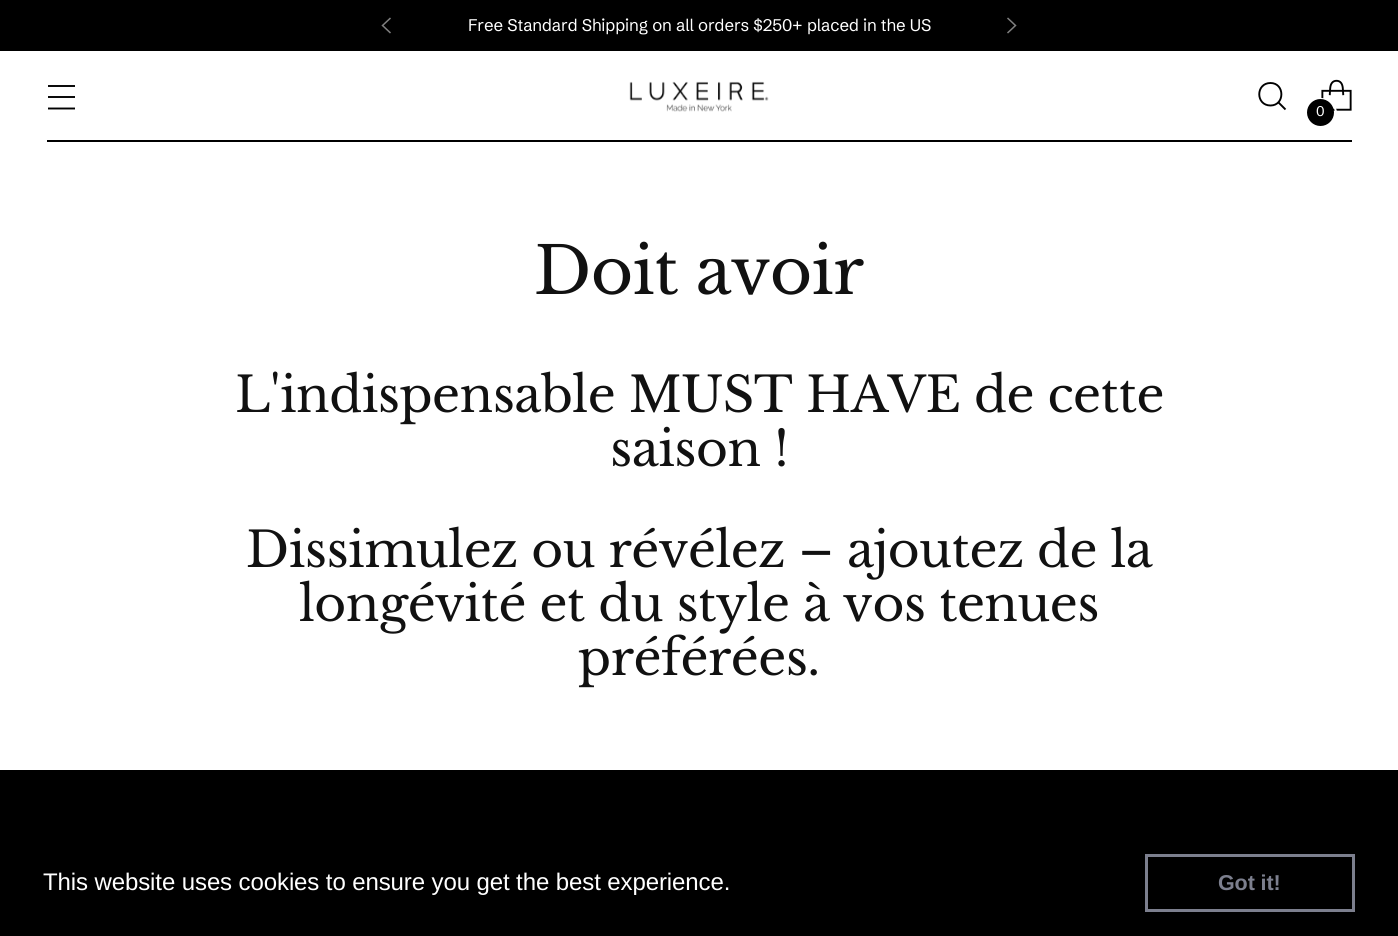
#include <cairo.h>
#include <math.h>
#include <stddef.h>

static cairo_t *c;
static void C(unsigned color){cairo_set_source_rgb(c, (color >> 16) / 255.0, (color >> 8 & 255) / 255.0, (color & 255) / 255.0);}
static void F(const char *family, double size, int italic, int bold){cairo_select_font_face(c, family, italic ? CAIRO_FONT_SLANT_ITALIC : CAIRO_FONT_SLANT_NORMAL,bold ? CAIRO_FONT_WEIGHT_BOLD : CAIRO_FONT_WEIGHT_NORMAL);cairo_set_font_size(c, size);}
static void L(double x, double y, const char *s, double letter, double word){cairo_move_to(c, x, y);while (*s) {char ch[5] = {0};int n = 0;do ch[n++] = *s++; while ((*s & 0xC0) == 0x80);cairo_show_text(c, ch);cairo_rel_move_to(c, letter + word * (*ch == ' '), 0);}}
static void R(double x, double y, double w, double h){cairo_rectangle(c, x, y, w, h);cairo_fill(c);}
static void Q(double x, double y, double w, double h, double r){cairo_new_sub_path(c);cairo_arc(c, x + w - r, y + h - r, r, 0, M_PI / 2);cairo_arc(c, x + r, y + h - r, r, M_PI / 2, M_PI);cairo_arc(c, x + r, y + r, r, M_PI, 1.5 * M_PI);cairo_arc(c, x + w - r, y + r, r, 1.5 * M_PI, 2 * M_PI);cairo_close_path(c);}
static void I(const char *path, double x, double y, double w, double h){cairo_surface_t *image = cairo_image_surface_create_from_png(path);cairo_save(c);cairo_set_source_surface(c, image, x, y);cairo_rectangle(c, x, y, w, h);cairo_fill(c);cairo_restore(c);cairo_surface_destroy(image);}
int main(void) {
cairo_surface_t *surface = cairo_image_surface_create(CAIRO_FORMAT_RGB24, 1398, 936);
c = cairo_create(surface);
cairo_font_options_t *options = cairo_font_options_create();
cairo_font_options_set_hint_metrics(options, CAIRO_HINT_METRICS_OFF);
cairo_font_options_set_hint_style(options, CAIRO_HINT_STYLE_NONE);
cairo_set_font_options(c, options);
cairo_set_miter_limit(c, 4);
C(0xffffff);
cairo_paint(c);
C(0x000000);
R(0,0,1398,51);
cairo_new_path(c);
cairo_move_to(c,390.5,18);
cairo_line_to(c,382.5,25.5);
cairo_line_to(c,390.5,33);
C(0x808080);
cairo_set_line_width(c,1.5);
cairo_stroke(c);
cairo_new_path(c);
cairo_move_to(c,1007.5,33);
cairo_line_to(c,1015.5,25.5);
cairo_line_to(c,1007.5,18);
cairo_stroke(c);
F("Schibsted Grotesk",16.8,0,0);
C(0xffffff);
L(468,31,"Free Standard Shipping on all orders $250+ placed in the US",-.08,0);
C(0x000000);
R(47,140,1305,2);
cairo_new_path(c);
cairo_move_to(c,48,97);
cairo_line_to(c,75,97);
cairo_move_to(c,48,86);
cairo_line_to(c,75,86);
cairo_move_to(c,48,108.5);
cairo_line_to(c,75,108.5);
cairo_set_line_width(c,1.9);
cairo_stroke(c);
I("1.png",629,81,140,31);
cairo_new_path(c);
cairo_move_to(c,1270.5,105.5);
cairo_curve_to(c,1285,105.5,1285,83,1270.5,83);
cairo_curve_to(c,1255.5,83,1255.5,105.5,1270.5,105.5);
cairo_close_path(c);
cairo_set_line_cap(c,CAIRO_LINE_CAP_ROUND);
cairo_stroke(c);
cairo_new_path(c);
cairo_move_to(c,1278.5,102.5);
cairo_line_to(c,1285.5,109.5);
cairo_set_line_cap(c,CAIRO_LINE_CAP_BUTT);
cairo_stroke(c);
I("2.png",1321,79,31,32);
Q(1306,99,30,29,14.5);
C(0xffffff);
cairo_set_line_width(c,2);
cairo_stroke(c);
C(0x000000);
cairo_arc(c,1320.5,112.5,13.5,0,2 * M_PI);
cairo_fill(c);
F("Schibsted Grotesk",14,0,0);
C(0xffffff);
L(1316,116,"0",-.1,0);
F("Libre Baskerville",65,0,0);
C(0x111111);
L(534,294,"Doit avoir",-.75,0);
F("Libre Baskerville",48.8,0,0);
L(235,412,"L'indispensable MUST HAVE de cette",-.5,0);
L(610,466,"saison !",-.5,0);
L(246,567,"Dissimulez ou révélez –",-.5,0);
L(847,567,"ajoutez de la",-.5,0);
L(299,621,"longévité et du style à vos tenues",-.5,0);
L(578,675,"préférées.",-.5,0);
C(0x000000);
R(0,770,1398,166);
F("Liberation Sans",24,0,0);
C(0xffffff);
L(43,890,"This website uses cookies to ensure you get the best experience.",-.1,0);
cairo_rectangle(c,1146.5,855.5,207,55);
C(0x7c7f8e);
cairo_set_line_width(c,3);
cairo_stroke(c);
F("Liberation Sans",21.5,0,1);
L(1218,890,"Got it!",-.1,0);
cairo_surface_write_to_png(surface, "o.png");
cairo_font_options_destroy(options);
cairo_destroy(c);
cairo_surface_destroy(surface);
return 0;
}
